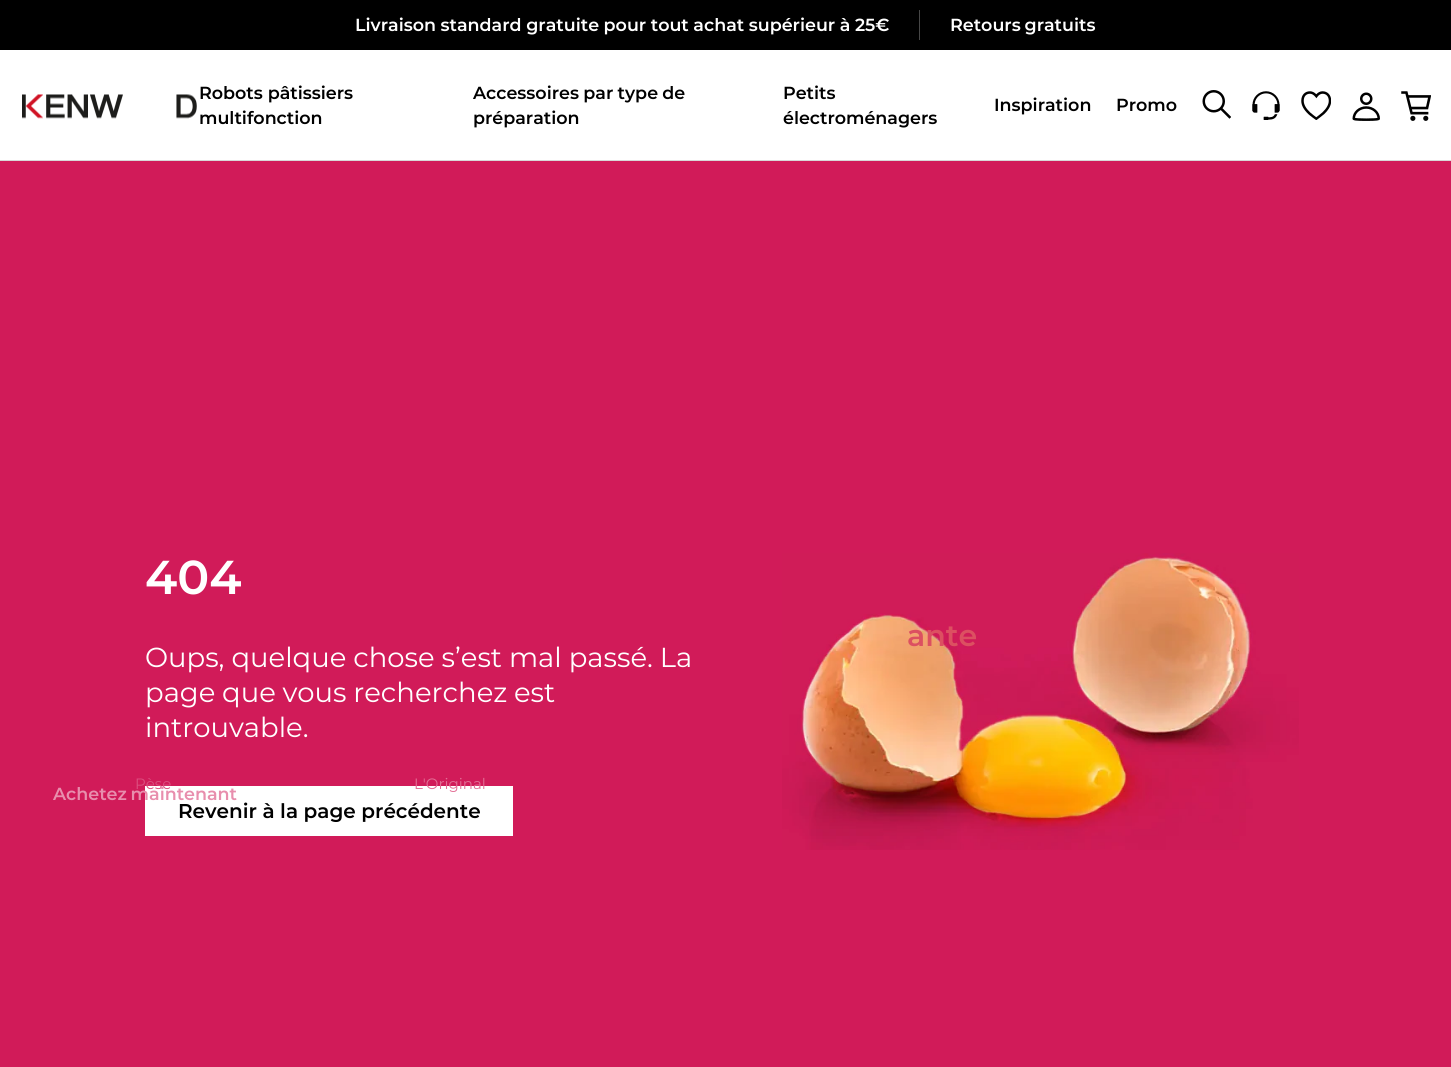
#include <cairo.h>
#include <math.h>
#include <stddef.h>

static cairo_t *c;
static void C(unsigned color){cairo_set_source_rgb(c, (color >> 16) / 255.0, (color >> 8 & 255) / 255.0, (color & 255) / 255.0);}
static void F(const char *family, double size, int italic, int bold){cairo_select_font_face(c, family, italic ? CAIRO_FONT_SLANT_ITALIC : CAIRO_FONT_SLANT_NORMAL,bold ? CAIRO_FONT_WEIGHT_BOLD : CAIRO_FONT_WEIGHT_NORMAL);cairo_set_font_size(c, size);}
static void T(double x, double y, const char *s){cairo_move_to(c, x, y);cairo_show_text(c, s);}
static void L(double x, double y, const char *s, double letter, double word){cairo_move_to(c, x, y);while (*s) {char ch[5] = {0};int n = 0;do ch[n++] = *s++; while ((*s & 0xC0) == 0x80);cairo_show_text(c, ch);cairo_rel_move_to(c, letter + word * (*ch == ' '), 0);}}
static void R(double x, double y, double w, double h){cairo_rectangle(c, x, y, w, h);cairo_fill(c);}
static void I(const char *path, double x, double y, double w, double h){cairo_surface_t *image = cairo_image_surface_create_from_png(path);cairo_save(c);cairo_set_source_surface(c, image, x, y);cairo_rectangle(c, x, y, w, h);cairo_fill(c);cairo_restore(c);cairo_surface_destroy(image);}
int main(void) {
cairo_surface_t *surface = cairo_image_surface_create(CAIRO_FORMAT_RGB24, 1451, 1067);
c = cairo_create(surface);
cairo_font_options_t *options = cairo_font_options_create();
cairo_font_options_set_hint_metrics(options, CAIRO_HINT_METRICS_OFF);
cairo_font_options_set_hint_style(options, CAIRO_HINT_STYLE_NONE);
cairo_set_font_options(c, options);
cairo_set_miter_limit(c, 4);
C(0xffffff);
cairo_paint(c);
C(0x000000);
R(0,0,1451,50);
F("Montserrat SemiBold",17.5,0,0);
C(0xffffff);
L(355,31,"Livraison standard gratuite pour tout achat supérieur à 25€",0,-.25);
C(0x474747);
R(919,10,1,30);
C(0xffffff);
L(950,31,"Retours gratuits",0,-1);
C(0xd8d8d8);
R(0,160,1451,1);
C(0x000000);
T(199,99,"Robots pâtissiers");
T(199,124,"multifonction");
C(0xd11b59);
R(0,161,1451,906);
C(0xffffff);
R(145,786,368,50);
F("Montserrat",15,0,0);
C(0xdb4f7f);
T(135,789,"Pèse");
C(0xe26e95);
T(414,789,"L'Original");
F("Montserrat SemiBold",17.5,0,0);
C(0x000000);
L(473,99,"Accessoires par type de",0,-.5);
T(473,124,"préparation");
T(783,99,"Petits");
T(783,124,"électroménagers");
T(994,111,"Inspiration");
T(1116,111,"Promo");
I("7.png",782,553,517,297);
F("Montserrat SemiBold",30,0,0);
C(0xdc5061);
T(907,646,"ante");
F("Montserrat SemiBold",17.5,0,0);
C(0xe88ead);
L(53,800,"Achetez maintenant",0,-1);
I("1.png",22,94,175,25);
I("2.png",1202,90,29,29);
I("3.png",1252,91,28,29);
I("4.png",1301,91,30,29);
I("5.png",1352,92,28,29);
I("6.png",1401,91,30,30);
F("Montserrat SemiBold",47.5,0,0);
C(0xffffff);
T(145,594,"404");
F("Montserrat",27.5,0,0);
L(145,667,"Oups, quelque chose s’est mal passé. La",0,-.25);
L(145,702,"page que vous recherchez est",0,-.5);
T(145,737,"introuvable.");
F("Montserrat SemiBold",20,0,0);
C(0x000000);
T(178,818,"Revenir à la page précédente");
cairo_surface_write_to_png(surface, "o.png");
cairo_font_options_destroy(options);
cairo_destroy(c);
cairo_surface_destroy(surface);
return 0;
}
